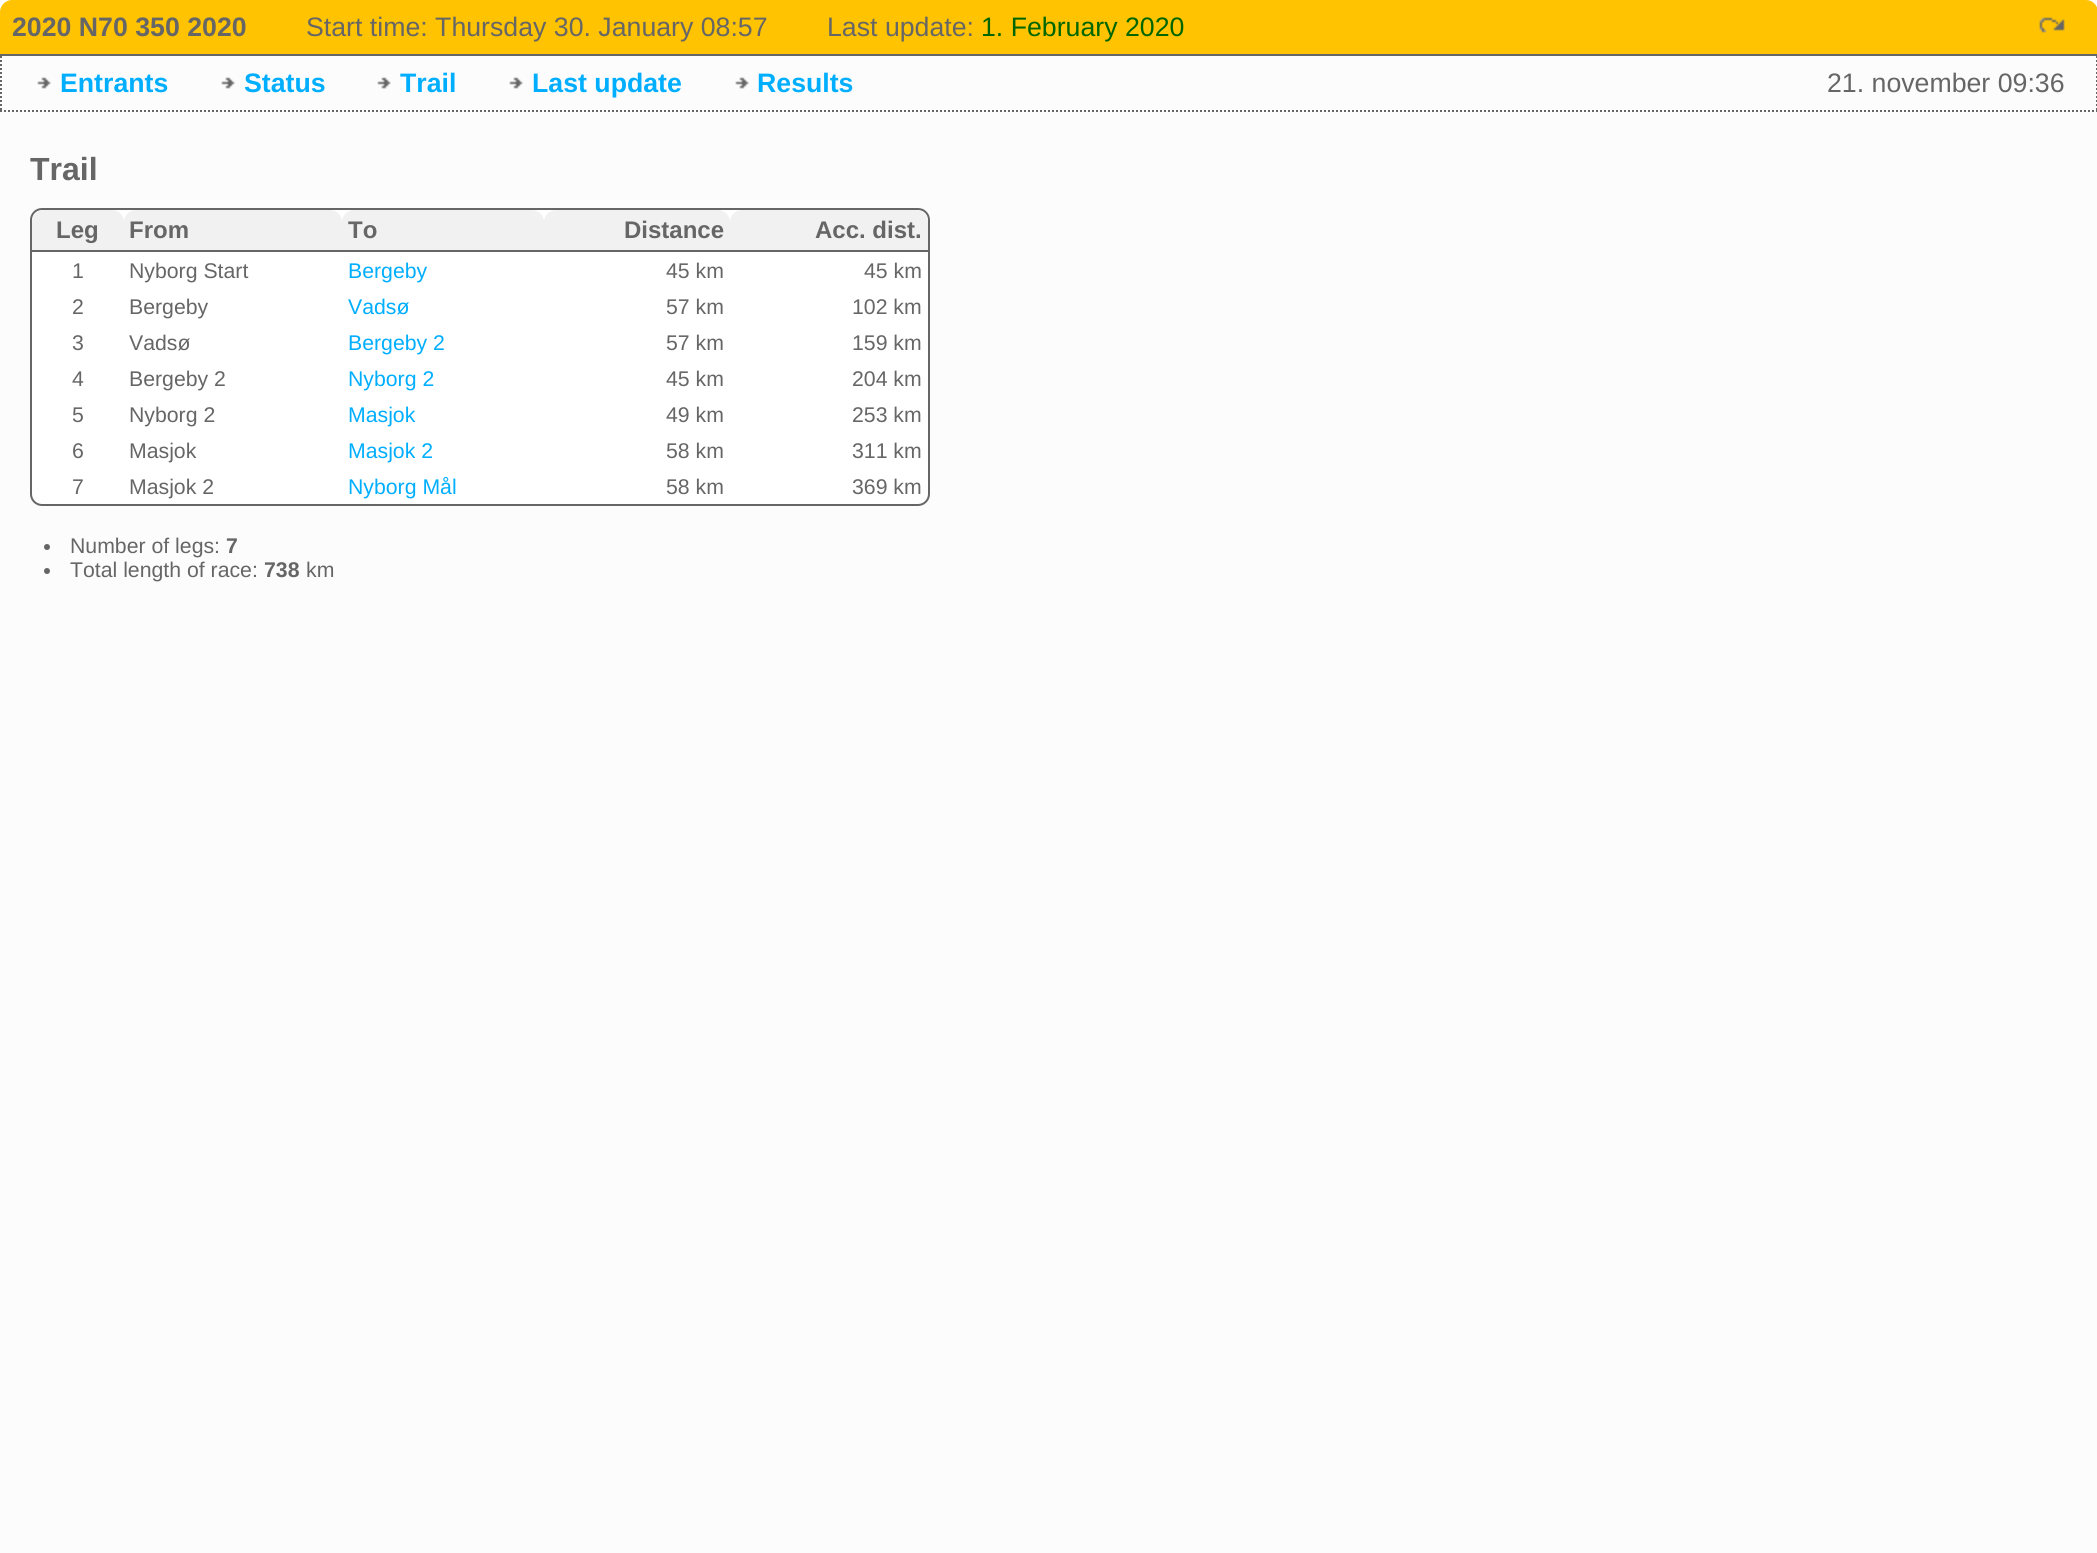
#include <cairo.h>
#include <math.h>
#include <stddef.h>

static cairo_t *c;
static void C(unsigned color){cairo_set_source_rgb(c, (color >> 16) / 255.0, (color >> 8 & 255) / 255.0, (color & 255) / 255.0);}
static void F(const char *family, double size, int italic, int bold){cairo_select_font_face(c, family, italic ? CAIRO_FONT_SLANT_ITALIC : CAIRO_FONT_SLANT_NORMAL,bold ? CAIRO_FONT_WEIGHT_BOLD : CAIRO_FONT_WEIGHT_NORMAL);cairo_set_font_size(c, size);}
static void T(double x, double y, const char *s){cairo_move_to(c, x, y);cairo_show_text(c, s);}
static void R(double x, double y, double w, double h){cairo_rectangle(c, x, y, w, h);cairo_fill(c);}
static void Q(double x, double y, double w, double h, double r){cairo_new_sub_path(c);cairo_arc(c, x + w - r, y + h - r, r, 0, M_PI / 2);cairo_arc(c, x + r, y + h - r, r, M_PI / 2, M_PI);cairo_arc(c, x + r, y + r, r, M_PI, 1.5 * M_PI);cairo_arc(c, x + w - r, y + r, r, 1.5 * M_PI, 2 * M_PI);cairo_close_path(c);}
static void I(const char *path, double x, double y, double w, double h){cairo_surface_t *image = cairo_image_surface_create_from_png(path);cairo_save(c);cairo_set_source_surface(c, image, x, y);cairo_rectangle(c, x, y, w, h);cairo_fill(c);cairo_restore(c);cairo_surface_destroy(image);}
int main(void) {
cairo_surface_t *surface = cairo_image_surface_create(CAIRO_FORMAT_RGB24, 2097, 1553);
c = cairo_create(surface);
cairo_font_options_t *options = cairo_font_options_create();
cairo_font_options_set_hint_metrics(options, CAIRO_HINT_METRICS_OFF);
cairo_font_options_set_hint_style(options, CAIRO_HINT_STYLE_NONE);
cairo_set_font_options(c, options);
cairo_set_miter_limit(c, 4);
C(0xfcfcfc);
cairo_paint(c);
C(0xffc301);
cairo_new_path(c);
cairo_move_to(c,12,0);
cairo_line_to(c,2086,0);
cairo_curve_to(c,2092.5,0,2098,5.5,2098,12);
cairo_line_to(c,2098,56);
cairo_line_to(c,0,56);
cairo_line_to(c,0,12);
cairo_curve_to(c,0,5.5,5.5,0,12,0);
cairo_close_path(c);
cairo_fill(c);
C(0x666666);
R(0,54,2097,2);
F("Liberation Sans",26.7,0,1);
T(12,36,"2020 N70 350 2020");
F("Liberation Sans",26.7,0,0);
T(306,36,"Start time: Thursday 30. January 08:57");
T(827,36,"Last update:");
C(0x006600);
T(981,36,"1. February 2020");
I("1.png",2039,17,26,16);
cairo_new_path(c);
cairo_move_to(c,2097,56);
cairo_line_to(c,2097,112);
C(0x666666);
cairo_set_dash(c,(double[]){2,2},2,0);
cairo_stroke(c);
cairo_new_path(c);
cairo_move_to(c,0,111);
cairo_line_to(c,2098,111);
cairo_stroke(c);
cairo_new_path(c);
cairo_move_to(c,1,56);
cairo_line_to(c,1,112);
cairo_stroke(c);
I("2.png",37,77,14,12);
F("Liberation Sans",26.7,0,1);
C(0x00aeff);
T(60,92,"Entrants");
I("2.png",221,77,14,12);
T(244,92,"Status");
I("2.png",377,77,14,12);
T(400,92,"Trail");
I("2.png",509,77,14,12);
T(532,92,"Last update");
I("2.png",735,77,14,12);
T(757,92,"Results");
F("Liberation Sans",26.7,0,0);
C(0x666666);
T(1827,92,"21. november 09:36");
F("Liberation Sans",32,0,1);
T(30,180,"Trail");
C(0xffffff);
Q(31,209,898,296,11);
cairo_fill_preserve(c);
C(0x666666);
cairo_set_dash(c,NULL,0,0);
cairo_stroke(c);
C(0xf1f1f1);
cairo_new_path(c);
cairo_move_to(c,44,210);
cairo_line_to(c,112,210);
cairo_curve_to(c,118.5,210,124,215.5,124,222);
cairo_line_to(c,124,252);
cairo_line_to(c,32,252);
cairo_line_to(c,32,222);
cairo_curve_to(c,32,215.5,37.5,210,44,210);
cairo_close_path(c);
cairo_fill(c);
C(0x666666);
R(32,250,92,2);
F("Liberation Sans",24,0,1);
T(56,238,"Leg");
C(0xf1f1f1);
cairo_new_path(c);
cairo_move_to(c,136,210);
cairo_line_to(c,330,210);
cairo_curve_to(c,336.5,210,342,215.5,342,222);
cairo_line_to(c,342,252);
cairo_line_to(c,124,252);
cairo_line_to(c,124,222);
cairo_curve_to(c,124,215.5,129.5,210,136,210);
cairo_close_path(c);
cairo_fill(c);
C(0x666666);
R(124,250,218,2);
T(129,238,"From");
C(0xf1f1f1);
cairo_new_path(c);
cairo_move_to(c,354,210);
cairo_line_to(c,532,210);
cairo_curve_to(c,538.5,210,544,215.5,544,222);
cairo_line_to(c,544,252);
cairo_line_to(c,342,252);
cairo_line_to(c,342,222);
cairo_curve_to(c,342,215.5,347.5,210,354,210);
cairo_close_path(c);
cairo_fill(c);
C(0x666666);
R(342,250,202,2);
T(348,238,"To");
C(0xf1f1f1);
cairo_new_path(c);
cairo_move_to(c,556,210);
cairo_line_to(c,718,210);
cairo_curve_to(c,724.5,210,730,215.5,730,222);
cairo_line_to(c,730,252);
cairo_line_to(c,544,252);
cairo_line_to(c,544,222);
cairo_curve_to(c,544,215.5,549.5,210,556,210);
cairo_close_path(c);
cairo_fill(c);
C(0x666666);
R(544,250,186,2);
T(624,238,"Distance");
C(0xf1f1f1);
cairo_new_path(c);
cairo_move_to(c,742,210);
cairo_line_to(c,916,210);
cairo_curve_to(c,922.5,210,928,215.5,928,222);
cairo_line_to(c,928,252);
cairo_line_to(c,730,252);
cairo_line_to(c,730,222);
cairo_curve_to(c,730,215.5,735.5,210,742,210);
cairo_close_path(c);
cairo_fill(c);
C(0x666666);
R(730,250,198,2);
T(815,238,"Acc. dist.");
F("Liberation Sans",21.25,0,0);
T(72,278,"1");
T(129,278,"Nyborg Start");
C(0x00aeff);
T(348,278,"Bergeby");
C(0x666666);
T(666,278,"45 km");
T(864,278,"45 km");
T(72,314,"2");
T(129,314,"Bergeby");
C(0x00aeff);
T(348,314,"Vadsø");
C(0x666666);
T(666,314,"57 km");
T(852,314,"102 km");
T(72,350,"3");
T(129,350,"Vadsø");
C(0x00aeff);
T(348,350,"Bergeby 2");
C(0x666666);
T(666,350,"57 km");
T(852,350,"159 km");
T(72,386,"4");
T(129,386,"Bergeby 2");
C(0x00aeff);
T(348,386,"Nyborg 2");
C(0x666666);
T(666,386,"45 km");
T(852,386,"204 km");
T(72,422,"5");
T(129,422,"Nyborg 2");
C(0x00aeff);
T(348,422,"Masjok");
C(0x666666);
T(666,422,"49 km");
T(852,422,"253 km");
T(72,458,"6");
T(129,458,"Masjok");
C(0x00aeff);
T(348,458,"Masjok 2");
C(0x666666);
T(666,458,"58 km");
T(852,458,"311 km");
T(72,494,"7");
T(129,494,"Masjok 2");
C(0x00aeff);
T(348,494,"Nyborg Mål");
C(0x666666);
T(666,494,"58 km");
T(852,494,"369 km");
cairo_new_path(c);
cairo_arc(c,47,547,3,0,2 * M_PI);
cairo_fill(c);
T(70,553,"Number of legs:");
F("Liberation Sans",21.25,0,1);
T(226,553,"7");
cairo_new_path(c);
cairo_arc(c,47,571,3,0,2 * M_PI);
cairo_fill(c);
F("Liberation Sans",21.25,0,0);
T(70,577,"Total length of race:");
F("Liberation Sans",21.25,0,1);
T(264,577,"738");
F("Liberation Sans",21.25,0,0);
T(306,577,"km");
cairo_surface_write_to_png(surface, "o.png");
cairo_font_options_destroy(options);
cairo_destroy(c);
cairo_surface_destroy(surface);
return 0;
}
